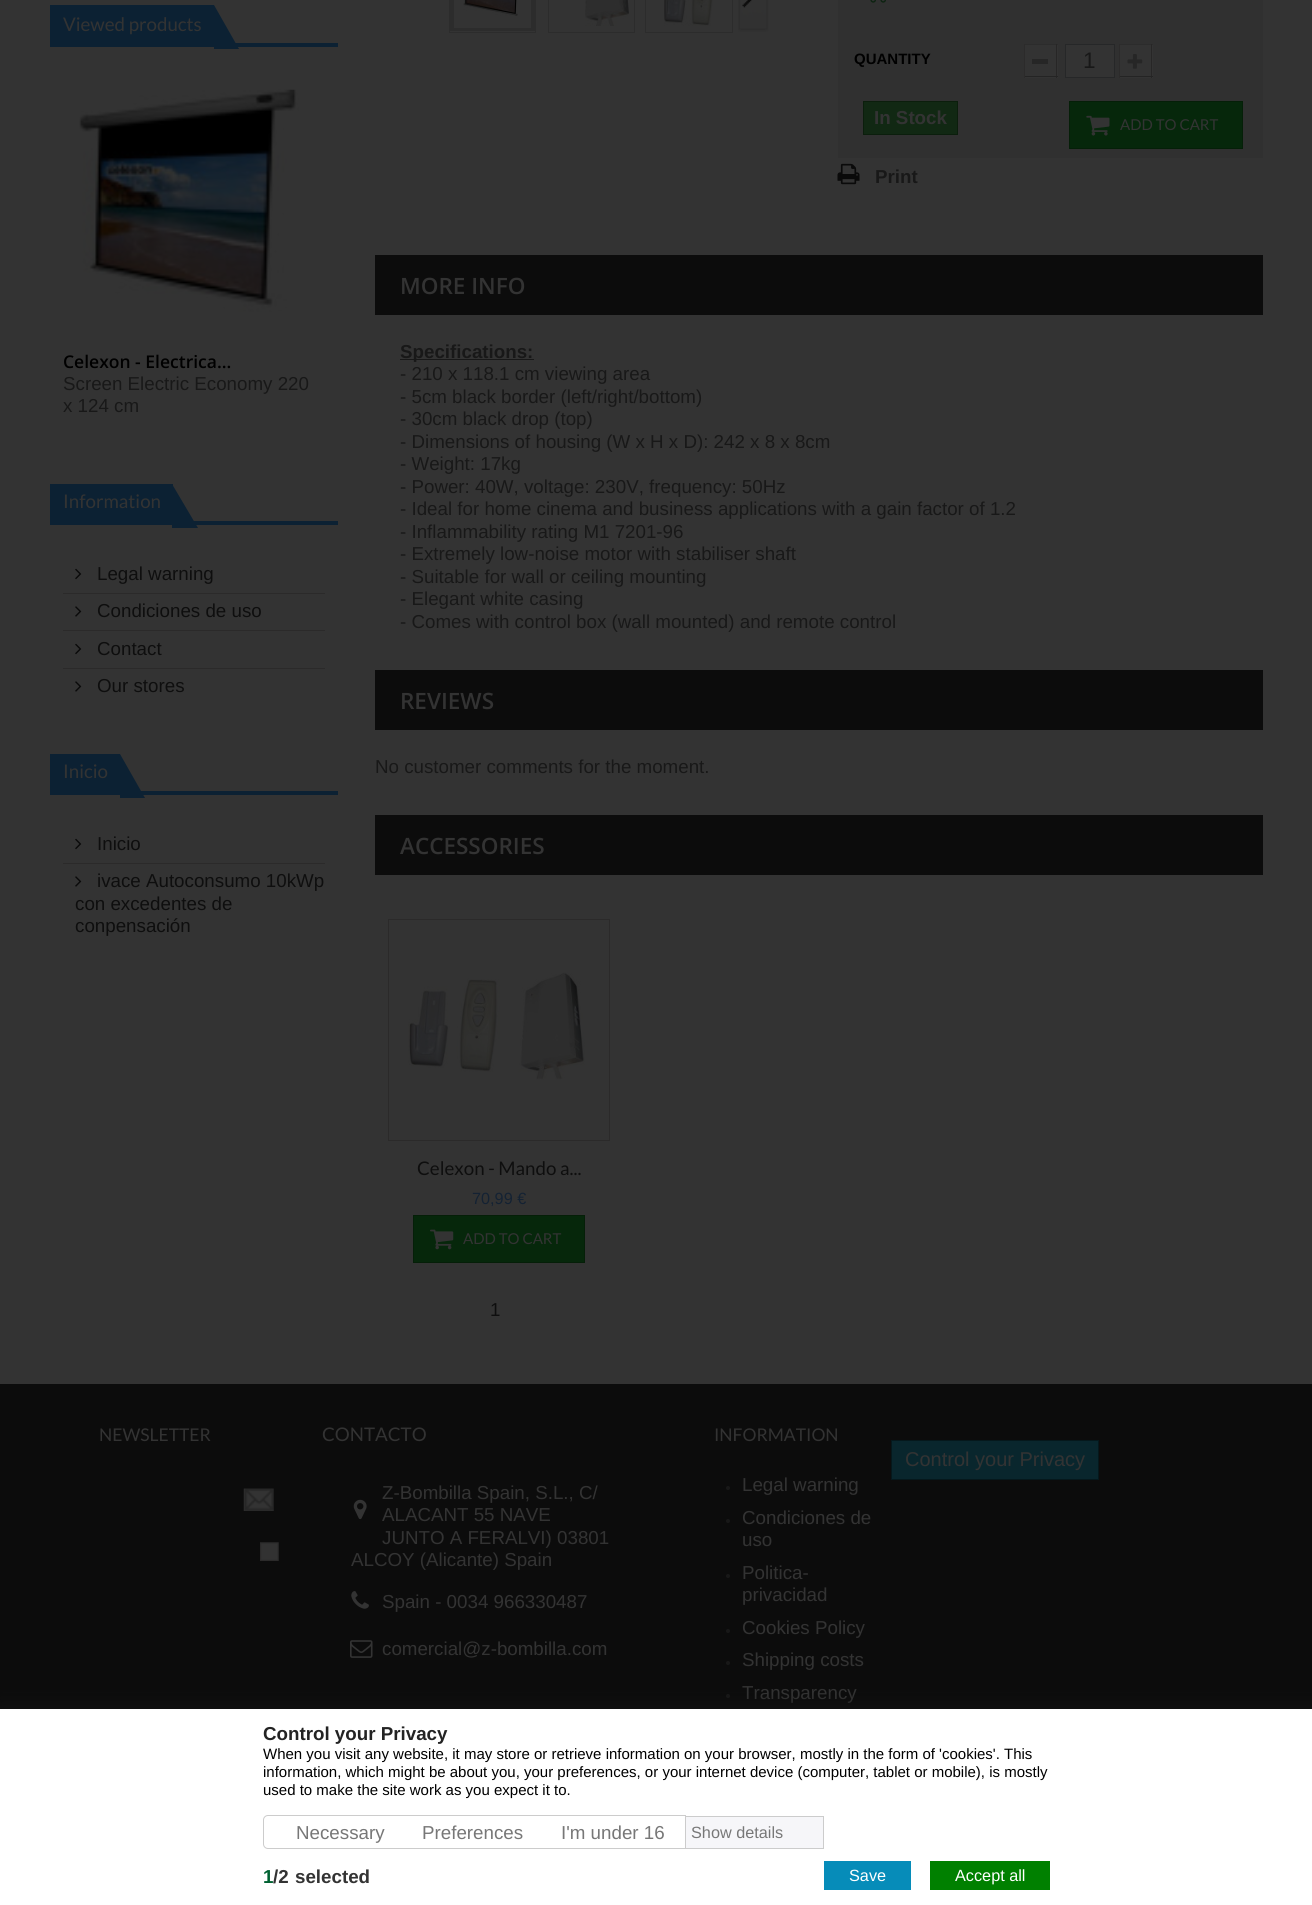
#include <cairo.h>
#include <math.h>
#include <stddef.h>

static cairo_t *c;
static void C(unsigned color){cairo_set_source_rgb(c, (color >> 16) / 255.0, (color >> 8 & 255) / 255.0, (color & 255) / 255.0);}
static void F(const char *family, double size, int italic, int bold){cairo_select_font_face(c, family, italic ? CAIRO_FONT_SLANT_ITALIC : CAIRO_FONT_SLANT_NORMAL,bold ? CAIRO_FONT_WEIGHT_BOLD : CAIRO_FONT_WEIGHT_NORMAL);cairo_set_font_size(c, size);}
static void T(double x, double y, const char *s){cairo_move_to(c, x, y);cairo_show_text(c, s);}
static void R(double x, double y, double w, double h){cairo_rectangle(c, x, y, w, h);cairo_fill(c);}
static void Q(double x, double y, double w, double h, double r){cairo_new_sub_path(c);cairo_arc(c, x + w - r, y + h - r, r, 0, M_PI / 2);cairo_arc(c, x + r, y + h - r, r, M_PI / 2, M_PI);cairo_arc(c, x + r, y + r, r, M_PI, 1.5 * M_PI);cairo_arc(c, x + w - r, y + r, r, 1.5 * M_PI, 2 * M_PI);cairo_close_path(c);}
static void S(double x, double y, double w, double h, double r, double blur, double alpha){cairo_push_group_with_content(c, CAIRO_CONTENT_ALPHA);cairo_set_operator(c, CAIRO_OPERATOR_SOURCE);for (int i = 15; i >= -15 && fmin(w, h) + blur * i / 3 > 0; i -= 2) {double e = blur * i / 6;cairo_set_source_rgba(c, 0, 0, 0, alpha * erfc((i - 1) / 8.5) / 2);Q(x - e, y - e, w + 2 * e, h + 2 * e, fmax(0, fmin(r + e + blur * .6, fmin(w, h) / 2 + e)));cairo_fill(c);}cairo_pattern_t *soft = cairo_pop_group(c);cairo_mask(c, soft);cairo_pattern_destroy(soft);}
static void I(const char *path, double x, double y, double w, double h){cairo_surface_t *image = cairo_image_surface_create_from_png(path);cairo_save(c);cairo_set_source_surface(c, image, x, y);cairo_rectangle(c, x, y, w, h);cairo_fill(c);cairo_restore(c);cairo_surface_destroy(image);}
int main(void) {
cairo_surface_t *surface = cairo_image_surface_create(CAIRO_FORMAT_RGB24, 1312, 1905);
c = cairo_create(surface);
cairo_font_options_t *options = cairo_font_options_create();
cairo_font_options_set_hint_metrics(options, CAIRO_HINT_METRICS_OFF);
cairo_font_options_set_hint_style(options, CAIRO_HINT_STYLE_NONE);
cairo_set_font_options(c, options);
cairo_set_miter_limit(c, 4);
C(0x333333);
cairo_paint(c);
C(0x0c2133);
R(50,43,288,4);
R(50,5,164,38);
F("Lato",18.75,0,0);
C(0x333333);
T(63,31,"Viewed products");
C(0x0c2133);
cairo_new_path(c);
cairo_move_to(c,239,49);
cairo_line_to(c,214,49);
cairo_line_to(c,214,5);
cairo_close_path(c);
cairo_fill(c);
I("1.png",79,89,220,223);
F("Open Sans SemiBold",17.5,0,0);
C(0x000000);
T(63,368,"Celexon - Electrica...");
F("Liberation Sans",18.75,0,0);
C(0x181818);
T(63,390,"Screen Electric Economy 220");
T(63,412,"x 124 cm");
C(0x0c2133);
R(50,521,288,4);
R(50,484,123,37);
F("Lato",18.75,0,0);
C(0x333333);
T(63,508,"Information");
C(0x0c2133);
cairo_new_path(c);
cairo_move_to(c,198,528);
cairo_line_to(c,172,528);
cairo_line_to(c,172,484);
cairo_close_path(c);
cairo_fill(c);
I("2.png",75,568,7,12);
F("Liberation Sans",18.75,0,0);
C(0x0e0e0e);
T(97,580,"Legal warning");
C(0x2b2a2a);
R(63,593,262,1);
I("3.png",75,606,7,11);
C(0x0e0e0e);
T(97,617,"Condiciones de uso");
C(0x2b2a2a);
R(63,630,262,1);
I("2.png",75,643,7,12);
C(0x0e0e0e);
T(97,655,"Contact");
C(0x2b2a2a);
R(63,668,262,1);
I("3.png",75,681,7,11);
C(0x0e0e0e);
T(97,692,"Our stores");
C(0x0c2133);
R(50,791,288,4);
R(50,754,70,37);
F("Lato",18.75,0,0);
C(0x333333);
T(63,778,"Inicio");
C(0x0c2133);
cairo_new_path(c);
cairo_move_to(c,145,798);
cairo_line_to(c,120,798);
cairo_line_to(c,120,754);
cairo_close_path(c);
cairo_fill(c);
I("2.png",75,838,7,12);
F("Liberation Sans",18.75,0,0);
C(0x0e0e0e);
T(97,850,"Inicio");
C(0x2b2a2a);
R(63,863,262,1);
I("3.png",75,876,7,11);
C(0x0e0e0e);
T(97,887,"ivace Autoconsumo 10kWp");
T(75,910,"con excedentes de");
T(75,932,"conpensación");
cairo_rectangle(c,449.5,-.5,86,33);
C(0x2c2c2c);
cairo_set_line_width(c,1);
cairo_stroke(c);
cairo_rectangle(c,452,-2,81,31);
cairo_set_line_width(c,4);
cairo_stroke(c);
cairo_rectangle(c,454.5,-.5,76,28);
C(0x333333);
cairo_set_line_width(c,1);
cairo_stroke(c);
I("4.png",463,0,55,16);
cairo_rectangle(c,548.5,-.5,86,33);
C(0x2c2c2c);
cairo_stroke(c);
I("5.png",585,0,44,26);
cairo_rectangle(c,645.5,-.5,87,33);
cairo_stroke(c);
I("6.png",664,0,49,26);
I("7.png",738,0,31,32);
C(0x303030);
R(838,0,425,158);
I("8.png",870,0,16,3);
F("Liberation Sans",15,0,1);
C(0x000000);
T(854,64,"QUANTITY");
C(0x333333);
R(1025,45,33,33);
C(0x2c2c2c);
R(1024,44,34,1);
C(0x272626);
R(1056,44,1,34);
C(0x242424);
R(1024,76,34,1);
C(0x2c2b2b);
R(1024,44,1,34);
C(0x262626);
R(1032,59,16,5);
C(0x333333);
cairo_rectangle(c,1065.5,44.5,49,33);
cairo_fill_preserve(c);
C(0x262728);
cairo_stroke(c);
F("Liberation Sans",22.5,0,0);
C(0x181818);
T(1083,68,"1");
C(0x333333);
R(1120,45,33,33);
C(0x2c2c2c);
R(1119,44,34,1);
C(0x272626);
R(1151,44,1,34);
C(0x242424);
R(1119,76,34,1);
C(0x2c2b2b);
R(1119,44,1,34);
I("9.png",1127,54,16,15);
C(0x112813);
cairo_rectangle(c,863.5,101.5,94,33);
cairo_fill_preserve(c);
C(0x0b1e0c);
cairo_stroke(c);
F("Liberation Sans",18.75,0,1);
C(0x333333);
T(874,124,"In Stock");
C(0x06270b);
cairo_rectangle(c,1069.5,101.5,173,47);
cairo_fill_preserve(c);
C(0x051f08);
cairo_stroke(c);
I("10.png",1086,115,24,21);
F("Lato",15,0,0);
C(0x333333);
T(1120,130,"ADD TO CART");
I("11.png",837,163,23,22);
F("Liberation Sans",18.75,0,1);
C(0x181818);
T(875,183,"Print");
C(0x0c0c0c);
R(375,255,888,60);
F("Open Sans SemiBold",22.5,0,0);
C(0x333333);
T(400,294,"MORE INFO");
C(0x181818);
R(400,359,134,1);
F("Liberation Sans",18.75,0,1);
T(400,358,"Specifications:");
F("Liberation Sans",18.75,0,0);
T(400,380,"- 210 x 118.1 cm viewing area");
T(400,403,"- 5cm black border (left/right/bottom)");
T(400,425,"- 30cm black drop (top)");
T(400,448,"- Dimensions of housing (W x H x D): 242 x 8 x 8cm");
T(400,470,"- Weight: 17kg");
T(400,493,"- Power: 40W, voltage: 230V, frequency: 50Hz");
T(400,515,"- Ideal for home cinema and business applications with a gain factor of 1.2");
T(400,538,"- Inflammability rating M1 7201-96");
T(400,560,"- Extremely low-noise motor with stabiliser shaft");
T(400,583,"- Suitable for wall or ceiling mounting");
T(400,605,"- Elegant white casing");
T(400,628,"- Comes with control box (wall mounted) and remote control");
C(0x0c0c0c);
R(375,670,888,60);
F("Open Sans SemiBold",22.5,0,0);
C(0x333333);
T(400,709,"REVIEWS");
F("Liberation Sans",18.75,0,0);
C(0x181818);
T(375,773,"No customer comments for the moment.");
C(0x0c0c0c);
R(375,815,888,60);
F("Open Sans SemiBold",22.5,0,0);
C(0x333333);
T(400,854,"ACCESSORIES");
cairo_rectangle(c,388.5,919.5,221,221);
C(0x2b2a2a);
cairo_stroke(c);
I("12.png",408,972,177,108);
F("Lato",18.75,0,0);
C(0x0e0e0e);
T(417,1175,"Celexon - Mando a...");
F("Liberation Sans",16.25,0,0);
C(0x142233);
T(472,1204,"70,99 €");
C(0x06270b);
cairo_rectangle(c,413.5,1215.5,171,47);
cairo_fill_preserve(c);
C(0x051f08);
cairo_stroke(c);
I("13.png",430,1229,24,21);
F("Lato",15,0,0);
C(0x333333);
T(463,1244,"ADD TO CART");
F("Liberation Sans",18.75,0,0);
C(0x0e0e0e);
T(490,1316,"1");
C(0x0c0c0c);
R(0,1384,1312,325);
F("Lato",17.5,0,0);
C(0x333333);
T(99,1441,"NEWSLETTER");
I("14.png",243,1488,31,23);
I("15.png",260,1542,19,19);
F("Lato",18.75,0,0);
T(322,1441,"CONTACTO");
F("Liberation Sans",18.75,0,0);
T(382,1499,"Z-Bombilla Spain, S.L., C/");
T(382,1521,"ALACANT 55 NAVE");
T(382,1544,"JUNTO A FERALVI) 03801");
T(351,1566,"ALCOY (Alicante) Spain");
I("16.png",353,1499,14,21);
I("17.png",351,1591,18,18);
T(382,1608,"Spain - 0034 966330487");
I("18.png",350,1640,23,18);
T(382,1655,"comercial@z-bombilla.com");
F("Lato",17.5,0,0);
T(714,1441,"INFORMATION");
C(0x181818);
cairo_new_path(c);
cairo_arc(c,728,1488,2,0,2 * M_PI);
cairo_fill(c);
F("Liberation Sans",18.75,0,0);
C(0x333333);
T(742,1491,"Legal warning");
C(0x181818);
cairo_new_path(c);
cairo_arc(c,728,1521,2,0,2 * M_PI);
cairo_fill(c);
C(0x333333);
T(742,1524,"Condiciones de");
T(742,1546,"uso");
C(0x181818);
cairo_new_path(c);
cairo_arc(c,728,1576,2,0,2 * M_PI);
cairo_fill(c);
C(0x333333);
T(742,1579,"Politica-");
T(742,1601,"privacidad");
C(0x181818);
cairo_new_path(c);
cairo_arc(c,728,1631,2,0,2 * M_PI);
cairo_fill(c);
C(0x333333);
T(742,1634,"Cookies Policy");
C(0x181818);
cairo_new_path(c);
cairo_arc(c,728,1663,2,0,2 * M_PI);
cairo_fill(c);
C(0x333333);
T(742,1666,"Shipping costs");
C(0x181818);
cairo_new_path(c);
cairo_arc(c,728,1696,2,0,2 * M_PI);
cairo_fill(c);
C(0x333333);
T(742,1699,"Transparency");
C(0x09262d);
cairo_rectangle(c,891.5,1440.5,207,39);
cairo_fill_preserve(c);
C(0x05181c);
cairo_stroke(c);
F("Liberation Sans",20,0,0);
C(0x333333);
T(905,1466,"Control your Privacy");
C(0x121212);
S(0,1709,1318,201,0,9,1);
C(0xffffff);
R(0,1709,1312,196);
F("Liberation Sans",18.75,0,1);
C(0x232323);
T(263,1740,"Control your Privacy");
F("Liberation Sans",15,0,0);
C(0x000000);
T(263,1759,"When you visit any website, it may store or retrieve information on your browser, mostly in the form of 'cookies'. This");
T(263,1777,"information, which might be about you, your preferences, or your internet device (computer, tablet or mobile), is mostly");
T(263,1795,"used to make the site work as you expect it to.");
cairo_new_path(c);
cairo_move_to(c,268,1815.5);
cairo_line_to(c,685.5,1815.5);
cairo_line_to(c,685.5,1848.5);
cairo_line_to(c,268,1848.5);
cairo_curve_to(c,265.5,1848.5,263.5,1846.5,263.5,1844);
cairo_line_to(c,263.5,1820);
cairo_curve_to(c,263.5,1817.5,265.5,1815.5,268,1815.5);
cairo_close_path(c);
C(0xcccccc);
cairo_stroke(c);
F("Liberation Sans",18.75,0,0);
C(0x777777);
T(296,1839,"Necessary");
T(422,1839,"Preferences");
T(561,1839,"I'm under 16");
C(0xf6f6f9);
R(686,1817,137,31);
C(0xcccccc);
R(686,1816,138,1);
R(823,1816,1,33);
R(686,1848,138,1);
F("Liberation Sans",16.25,0,0);
C(0x777777);
T(691,1838,"Show details");
F("Liberation Sans",18.75,0,1);
C(0x006131);
T(263,1883,"1");
C(0x333333);
T(273,1883,"/2");
T(295,1883,"selected");
C(0x068cb9);
R(824,1861,87,29);
F("Liberation Sans",16.25,0,0);
C(0xffffff);
T(849,1881,"Save");
C(0x008000);
R(930,1861,120,29);
C(0xffffff);
T(955,1881,"Accept all");
cairo_surface_write_to_png(surface, "o.png");
cairo_font_options_destroy(options);
cairo_destroy(c);
cairo_surface_destroy(surface);
return 0;
}
